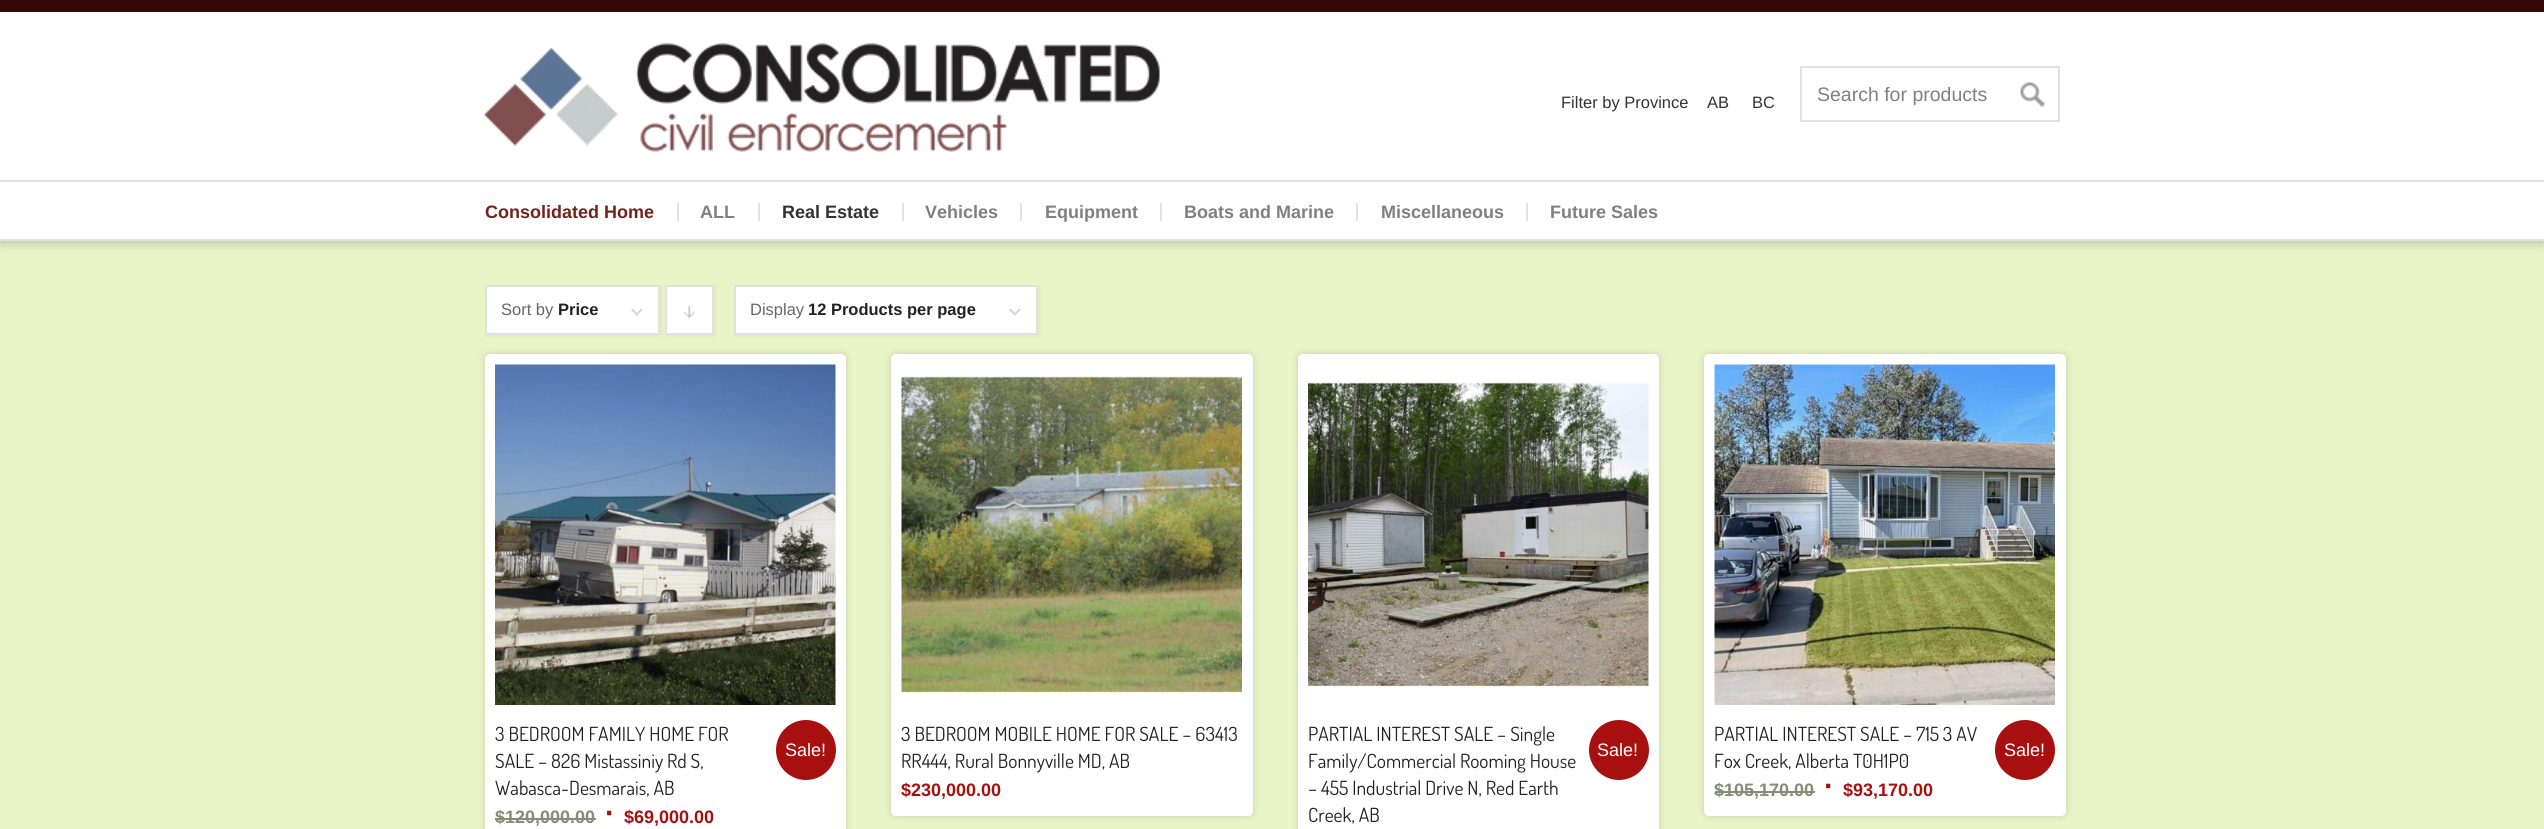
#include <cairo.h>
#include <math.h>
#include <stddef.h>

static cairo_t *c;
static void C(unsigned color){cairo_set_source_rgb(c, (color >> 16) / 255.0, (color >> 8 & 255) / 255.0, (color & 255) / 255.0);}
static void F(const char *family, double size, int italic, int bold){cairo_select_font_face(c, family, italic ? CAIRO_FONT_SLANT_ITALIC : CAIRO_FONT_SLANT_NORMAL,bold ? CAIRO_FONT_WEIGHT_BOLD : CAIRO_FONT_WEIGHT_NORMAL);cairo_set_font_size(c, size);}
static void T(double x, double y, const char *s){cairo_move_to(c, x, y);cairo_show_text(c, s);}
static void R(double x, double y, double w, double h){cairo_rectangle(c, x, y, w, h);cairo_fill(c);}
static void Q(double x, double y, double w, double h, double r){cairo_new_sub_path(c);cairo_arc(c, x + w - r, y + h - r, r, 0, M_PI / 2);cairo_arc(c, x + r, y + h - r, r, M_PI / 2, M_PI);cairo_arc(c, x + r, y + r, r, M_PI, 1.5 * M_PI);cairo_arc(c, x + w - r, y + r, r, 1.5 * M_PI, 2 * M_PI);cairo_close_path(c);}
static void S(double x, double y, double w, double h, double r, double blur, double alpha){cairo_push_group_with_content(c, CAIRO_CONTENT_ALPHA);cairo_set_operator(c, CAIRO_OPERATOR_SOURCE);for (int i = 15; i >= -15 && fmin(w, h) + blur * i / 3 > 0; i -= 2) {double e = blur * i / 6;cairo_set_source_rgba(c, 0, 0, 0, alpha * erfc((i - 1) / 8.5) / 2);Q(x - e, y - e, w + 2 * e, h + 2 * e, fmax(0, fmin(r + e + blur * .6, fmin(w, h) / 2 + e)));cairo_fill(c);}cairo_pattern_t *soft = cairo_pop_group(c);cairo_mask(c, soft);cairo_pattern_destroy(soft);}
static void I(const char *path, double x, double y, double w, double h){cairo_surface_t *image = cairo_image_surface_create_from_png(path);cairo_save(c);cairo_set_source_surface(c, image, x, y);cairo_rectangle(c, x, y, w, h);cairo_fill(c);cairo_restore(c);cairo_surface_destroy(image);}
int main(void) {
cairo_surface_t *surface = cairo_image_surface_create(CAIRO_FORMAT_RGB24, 2544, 829);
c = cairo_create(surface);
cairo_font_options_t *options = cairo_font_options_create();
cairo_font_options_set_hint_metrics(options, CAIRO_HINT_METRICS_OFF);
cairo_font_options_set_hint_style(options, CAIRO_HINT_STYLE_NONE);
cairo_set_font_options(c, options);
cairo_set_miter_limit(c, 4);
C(0x360808);
cairo_paint(c);
C(0xe9f5c7);
R(0,241,2544,588);
C(0x000000);
S(0,180,2544,60,0,7.5,.3);
C(0xffffff);
R(0,12,2544,168);
I("1.png",484,43,676,109);
F("Liberation Sans",16.5,0,0);
C(0x333333);
T(1561,108,"Filter by Province");
T(1707,108,"AB");
T(1752,108,"BC");
cairo_rectangle(c,1801,67,258,54);
C(0xe1e1e1);
cairo_stroke(c);
F("Liberation Sans",19.5,0,0);
C(0x808080);
T(1817,101,"Search for products");
I("2.png",2020,82,25,25);
C(0xffffff);
R(0,182,2544,57);
C(0xe1e1e1);
R(0,180,2544,2);
R(0,239,2544,2);
F("Liberation Sans",18,0,1);
C(0x74221c);
T(485,218,"Consolidated Home");
C(0xe1e1e1);
R(677,203,2,18);
C(0x808080);
T(700,218,"ALL");
C(0xe1e1e1);
R(758,203,2,18);
C(0x333333);
T(782,218,"Real Estate");
C(0xe1e1e1);
R(902,203,2,18);
C(0x808080);
T(925,218,"Vehicles");
C(0xe1e1e1);
R(1020,203,2,18);
C(0x808080);
T(1045,218,"Equipment");
C(0xe1e1e1);
R(1160,203,2,18);
C(0x808080);
T(1184,218,"Boats and Marine");
C(0xe1e1e1);
R(1356,203,2,18);
C(0x808080);
T(1381,218,"Miscellaneous");
C(0xe1e1e1);
R(1526,203,2,18);
C(0x808080);
T(1550,218,"Future Sales");
C(0x000000);
S(486,287,176,49,0,1.5,.05);
C(0xffffff);
R(487,287,171,46);
I("3.png",631,308,12,8);
cairo_rectangle(c,486,286,173,48);
C(0xe1e1e1);
cairo_stroke(c);
F("Liberation Sans",16.5,0,0);
C(0x666666);
T(501,315,"Sort by");
F("Liberation Sans",16.5,0,1);
C(0x222222);
T(558,315,"Price");
C(0x000000);
S(666,287,50,49,0,1.5,.05);
C(0xffffff);
R(667,287,45,46);
I("4.png",683,305,12,14);
cairo_rectangle(c,666,286,47,48);
C(0xe1e1e1);
cairo_stroke(c);
C(0x000000);
S(735,287,305,49,0,1.5,.05);
C(0xffffff);
R(736,287,300,46);
I("5.png",1009,308,12,8);
cairo_rectangle(c,735,286,302,48);
C(0xe1e1e1);
cairo_stroke(c);
F("Liberation Sans",16.5,0,0);
C(0x666666);
T(750,315,"Display");
F("Liberation Sans",16.5,0,1);
C(0x222222);
T(808,315,"12 Products per page");
C(0x000000);
S(485,354,361,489,5,4,.15);
C(0xffffff);
Q(485,354,361,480,5);
cairo_fill(c);
I("6.png",495,364,341,341);
F("Dosis",19.5,0,0);
C(0x222222);
T(495,741,"3 BEDROOM FAMILY HOME FOR");
T(495,768,"SALE – 826 Mistassiniy Rd S,");
T(495,795,"Wabasca-Desmarais, AB");
C(0xa81010);
cairo_new_path(c);
cairo_arc(c,806,750,30,0,2 * M_PI);
cairo_fill(c);
F("Liberation Sans",18,0,0);
C(0xffffff);
T(785,756,"Sale!");
F("Liberation Sans",18,0,1);
C(0x868c75);
T(495,823,"$120,000.00");
R(495,818,101,2);
F("Liberation Sans",30,0,1);
C(0xa81010);
T(605,823,"∙");
F("Liberation Sans",18,0,1);
T(624,823,"$69,000.00");
C(0x000000);
S(891,354,362,462,5,4,.15);
C(0xffffff);
Q(891,354,362,462,5);
cairo_fill(c);
I("7.png",901,376,341,319);
F("Dosis",19.5,0,0);
C(0x222222);
T(901,741,"3 BEDROOM MOBILE HOME FOR SALE – 63413");
T(901,768,"RR444, Rural Bonnyville MD, AB");
F("Liberation Sans",18,0,1);
C(0xa81010);
T(901,796,"$230,000.00");
C(0x000000);
S(1298,354,361,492,5,4,.15);
C(0xffffff);
Q(1298,354,361,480,5);
cairo_fill(c);
I("8.png",1308,377,341,314);
F("Dosis",19.5,0,0);
C(0x222222);
T(1308,741,"PARTIAL INTEREST SALE – Single");
T(1308,768,"Family/Commercial Rooming House");
T(1308,795,"– 455 Industrial Drive N, Red Earth");
T(1308,822,"Creek, AB");
C(0xa81010);
cairo_new_path(c);
cairo_arc(c,1619,750,30,0,2 * M_PI);
cairo_fill(c);
F("Liberation Sans",18,0,0);
C(0xffffff);
T(1597,756,"Sale!");
C(0x000000);
S(1704,354,362,462,5,4,.15);
C(0xffffff);
Q(1704,354,362,462,5);
cairo_fill(c);
I("9.png",1714,364,341,341);
F("Dosis",19.5,0,0);
C(0x222222);
T(1714,741,"PARTIAL INTEREST SALE – 715 3 AV");
T(1714,768,"Fox Creek, Alberta T0H1P0");
C(0xa81010);
cairo_new_path(c);
cairo_arc(c,2025,750,30,0,2 * M_PI);
cairo_fill(c);
F("Liberation Sans",18,0,0);
C(0xffffff);
T(2004,756,"Sale!");
F("Liberation Sans",18,0,1);
C(0x868c75);
T(1714,796,"$105,170.00");
R(1715,791,100,2);
F("Liberation Sans",30,0,1);
C(0xa81010);
T(1824,796,"∙");
F("Liberation Sans",18,0,1);
T(1843,796,"$93,170.00");
cairo_surface_write_to_png(surface, "o.png");
cairo_font_options_destroy(options);
cairo_destroy(c);
cairo_surface_destroy(surface);
return 0;
}
